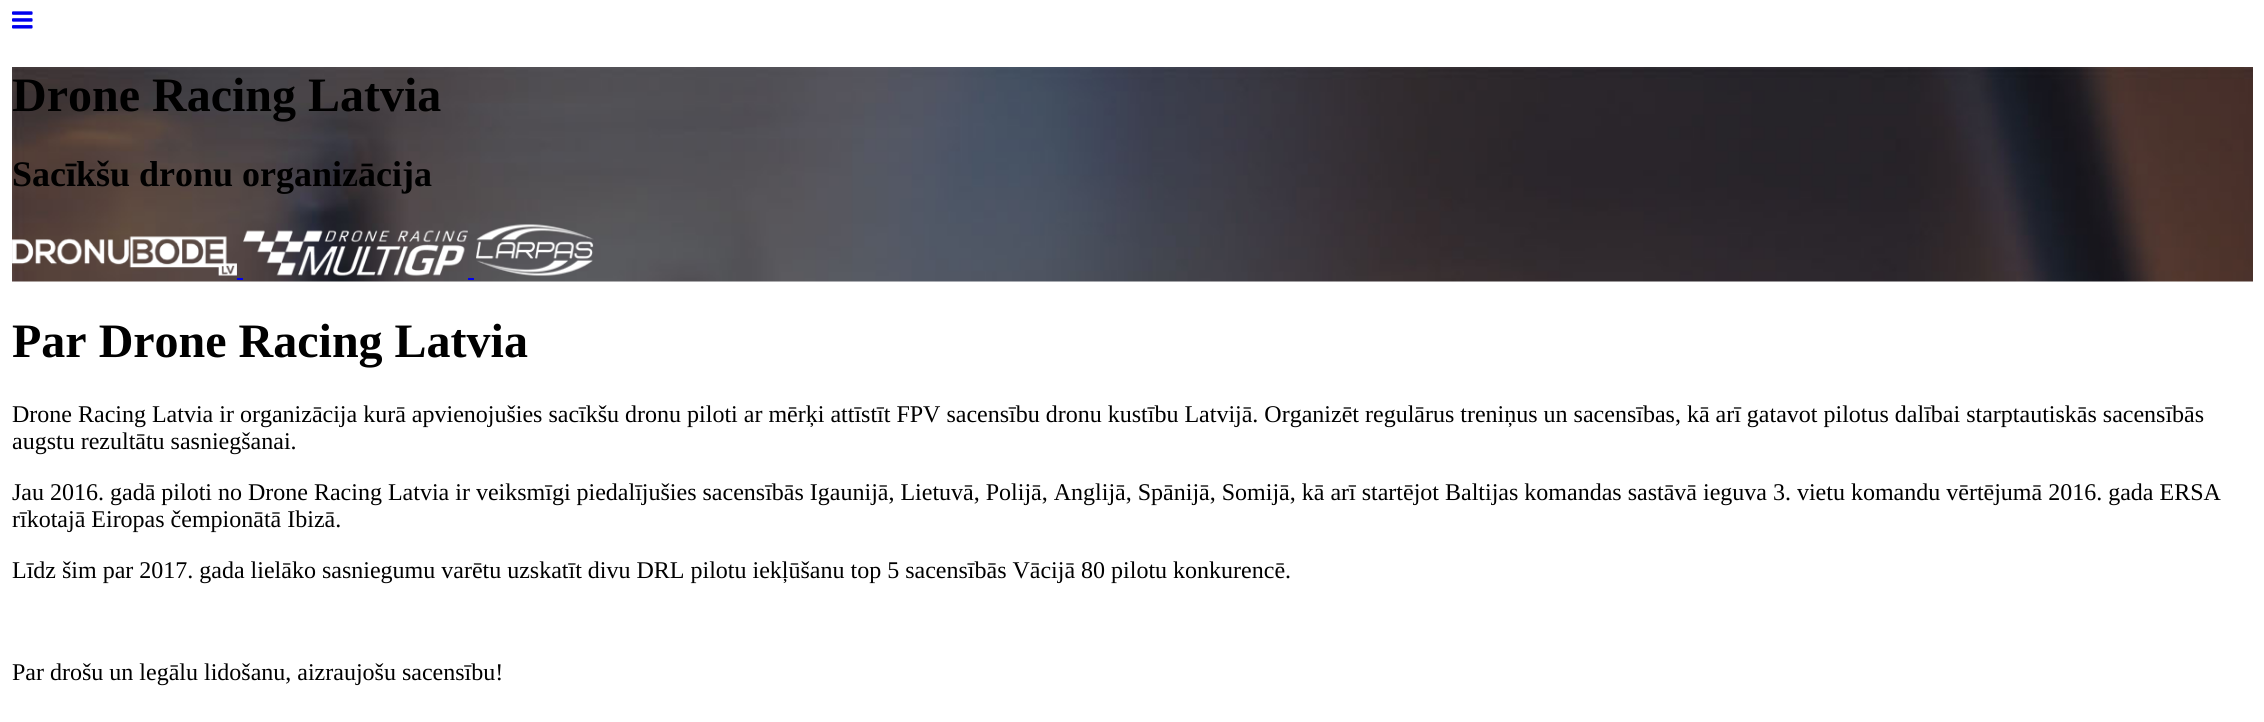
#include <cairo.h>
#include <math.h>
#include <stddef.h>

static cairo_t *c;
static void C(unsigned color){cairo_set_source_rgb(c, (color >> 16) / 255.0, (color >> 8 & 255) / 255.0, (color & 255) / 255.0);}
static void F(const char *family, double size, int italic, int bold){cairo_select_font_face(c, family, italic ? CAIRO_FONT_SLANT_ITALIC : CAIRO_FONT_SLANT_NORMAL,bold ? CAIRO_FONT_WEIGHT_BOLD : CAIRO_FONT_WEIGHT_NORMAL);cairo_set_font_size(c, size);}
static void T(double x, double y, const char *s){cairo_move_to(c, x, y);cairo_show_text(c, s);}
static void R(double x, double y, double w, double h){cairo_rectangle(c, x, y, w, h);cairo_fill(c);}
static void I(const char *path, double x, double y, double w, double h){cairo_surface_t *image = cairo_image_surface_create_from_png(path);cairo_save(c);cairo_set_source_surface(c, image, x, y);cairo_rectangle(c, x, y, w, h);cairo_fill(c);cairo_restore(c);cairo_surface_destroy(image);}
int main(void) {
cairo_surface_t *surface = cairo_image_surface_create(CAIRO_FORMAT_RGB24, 2264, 722);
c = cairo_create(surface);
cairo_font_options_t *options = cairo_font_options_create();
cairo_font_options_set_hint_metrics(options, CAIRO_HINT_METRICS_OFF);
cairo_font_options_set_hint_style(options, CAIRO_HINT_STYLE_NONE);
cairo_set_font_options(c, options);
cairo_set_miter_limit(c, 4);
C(0xffffff);
cairo_paint(c);
I("1.png",12,11,21,18);
I("2.png",12,67,2241,215);
F("Liberation Serif",48,0,1);
C(0x000000);
T(12,111,"Drone Racing Latvia");
F("Liberation Serif",36,0,1);
T(12,186,"Sacīkšu dronu organizācija");
I("3.png",12,236,225,40);
I("4.png",243,230,225,46);
I("5.png",476,224,118,52);
C(0x0000ee);
R(237,278,6,2);
R(468,278,6,2);
F("Liberation Serif",48,0,1);
C(0x000000);
T(12,357,"Par Drone Racing Latvia");
F("Liberation Serif",24,0,0);
T(12,422,"Drone Racing Latvia ir organizācija kurā apvienojušies sacīkšu dronu piloti ar mērķi attīstīt FPV sacensību dronu kustību Latvijā. Organizēt regulārus treniņus un sacensības, kā arī gatavot pilotus dalībai starptautiskās sacensībās");
T(12,449,"augstu rezultātu sasniegšanai.");
T(12,500,"Jau 2016. gadā piloti no Drone Racing Latvia ir veiksmīgi piedalījušies sacensībās Igaunijā, Lietuvā, Polijā, Anglijā, Spānijā, Somijā, kā arī startējot Baltijas komandas sastāvā ieguva 3. vietu komandu vērtējumā 2016. gada ERSA");
T(12,527,"rīkotajā Eiropas čempionātā Ibizā.");
T(12,578,"Līdz šim par 2017. gada lielāko sasniegumu varētu uzskatīt divu DRL pilotu iekļūšanu top 5 sacensībās Vācijā 80 pilotu konkurencē.");
T(12,680,"Par drošu un legālu lidošanu, aizraujošu sacensību!");
cairo_surface_write_to_png(surface, "o.png");
cairo_font_options_destroy(options);
cairo_destroy(c);
cairo_surface_destroy(surface);
return 0;
}
